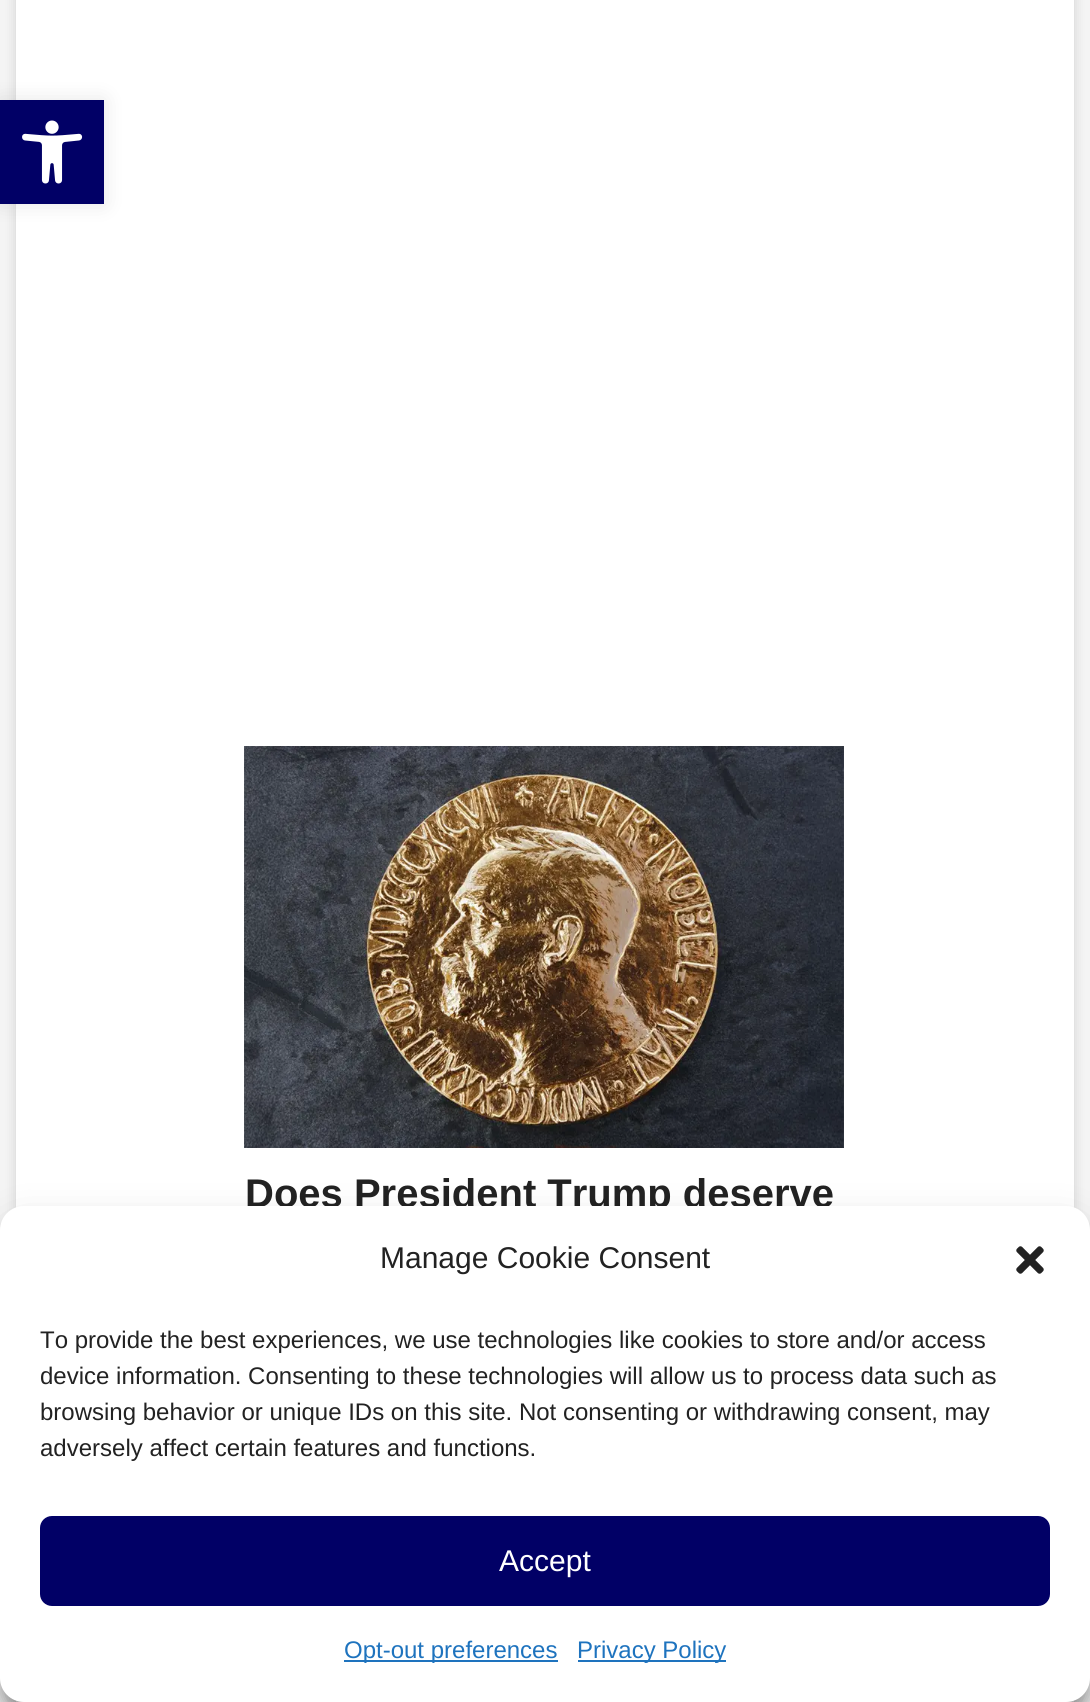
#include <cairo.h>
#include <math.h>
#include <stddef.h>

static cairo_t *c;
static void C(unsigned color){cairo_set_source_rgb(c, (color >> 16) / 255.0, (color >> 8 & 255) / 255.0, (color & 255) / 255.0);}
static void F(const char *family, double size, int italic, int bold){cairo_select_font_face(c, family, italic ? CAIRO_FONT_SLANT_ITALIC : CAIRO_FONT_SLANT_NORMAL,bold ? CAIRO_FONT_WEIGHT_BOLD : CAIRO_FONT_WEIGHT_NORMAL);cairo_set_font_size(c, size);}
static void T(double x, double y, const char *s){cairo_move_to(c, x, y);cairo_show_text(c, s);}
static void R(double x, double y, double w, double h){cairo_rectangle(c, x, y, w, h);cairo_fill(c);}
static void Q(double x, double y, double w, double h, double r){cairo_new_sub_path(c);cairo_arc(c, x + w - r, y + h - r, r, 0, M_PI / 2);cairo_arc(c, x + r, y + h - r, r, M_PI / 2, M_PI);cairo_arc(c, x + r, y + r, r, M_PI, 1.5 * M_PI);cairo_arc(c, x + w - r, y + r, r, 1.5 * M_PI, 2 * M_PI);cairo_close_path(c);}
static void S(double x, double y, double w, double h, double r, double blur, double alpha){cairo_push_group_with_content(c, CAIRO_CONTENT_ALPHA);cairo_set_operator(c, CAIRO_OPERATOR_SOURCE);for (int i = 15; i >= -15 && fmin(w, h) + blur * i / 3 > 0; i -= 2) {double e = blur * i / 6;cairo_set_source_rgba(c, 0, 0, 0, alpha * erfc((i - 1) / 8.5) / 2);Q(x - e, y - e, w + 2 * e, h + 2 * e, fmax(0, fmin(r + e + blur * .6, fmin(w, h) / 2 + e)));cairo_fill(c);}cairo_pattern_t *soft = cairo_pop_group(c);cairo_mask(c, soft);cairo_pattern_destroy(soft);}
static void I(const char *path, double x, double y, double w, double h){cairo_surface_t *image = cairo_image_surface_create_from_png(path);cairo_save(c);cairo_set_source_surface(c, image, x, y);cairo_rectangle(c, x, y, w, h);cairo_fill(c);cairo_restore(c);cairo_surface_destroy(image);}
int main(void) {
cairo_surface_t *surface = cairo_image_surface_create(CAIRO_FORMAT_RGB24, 1090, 1702);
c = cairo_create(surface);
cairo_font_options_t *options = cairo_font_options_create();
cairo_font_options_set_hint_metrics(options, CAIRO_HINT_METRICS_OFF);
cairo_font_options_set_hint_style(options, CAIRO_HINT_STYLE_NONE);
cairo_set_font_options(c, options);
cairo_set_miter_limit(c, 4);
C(0xf4f4f4);
cairo_paint(c);
C(0x000000);
S(16,-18,1058,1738,0,6,.15);
C(0xffffff);
R(16,0,1058,1702);
C(0x000000);
S(0,100,104,104,0,10,.1);
C(0x010066);
R(0,100,104,104);
I("1.png",22,120,61,64);
I("2.png",244,746,600,402);
F("Liberation Sans",40,0,1);
C(0x222222);
T(245,1207,"Does President Trump deserve");
C(0x000000);
S(0,1218,1090,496,24,6,.23);
S(0,1226,1090,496,24,20,.19);
C(0x808080);
S(950,1554,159,120,4,5,1);
C(0xffffff);
Q(0,1206,1090,496,24);
cairo_fill(c);
F("Liberation Sans",30,0,0);
C(0x222222);
T(380,1268,"Manage Cookie Consent");
I("3.png",1016,1246,28,28);
F("Liberation Sans",24,0,0);
T(40,1348,"To provide the best experiences, we use technologies like cookies to store and/or access");
T(40,1384,"device information. Consenting to these technologies will allow us to process data such as");
T(40,1420,"browsing behavior or unique IDs on this site. Not consenting or withdrawing consent, may");
T(40,1456,"adversely affect certain features and functions.");
C(0x010066);
Q(41,1517,1008,88,11);
cairo_fill_preserve(c);
cairo_stroke(c);
F("Liberation Sans",30,0,0);
C(0xffffff);
T(499,1571,"Accept");
C(0x1e73be);
R(344,1660,214,2);
F("Liberation Sans",24,0,0);
T(344,1658,"Opt-out preferences");
R(578,1660,148,2);
T(577,1658,"Privacy Policy");
cairo_surface_write_to_png(surface, "o.png");
cairo_font_options_destroy(options);
cairo_destroy(c);
cairo_surface_destroy(surface);
return 0;
}
